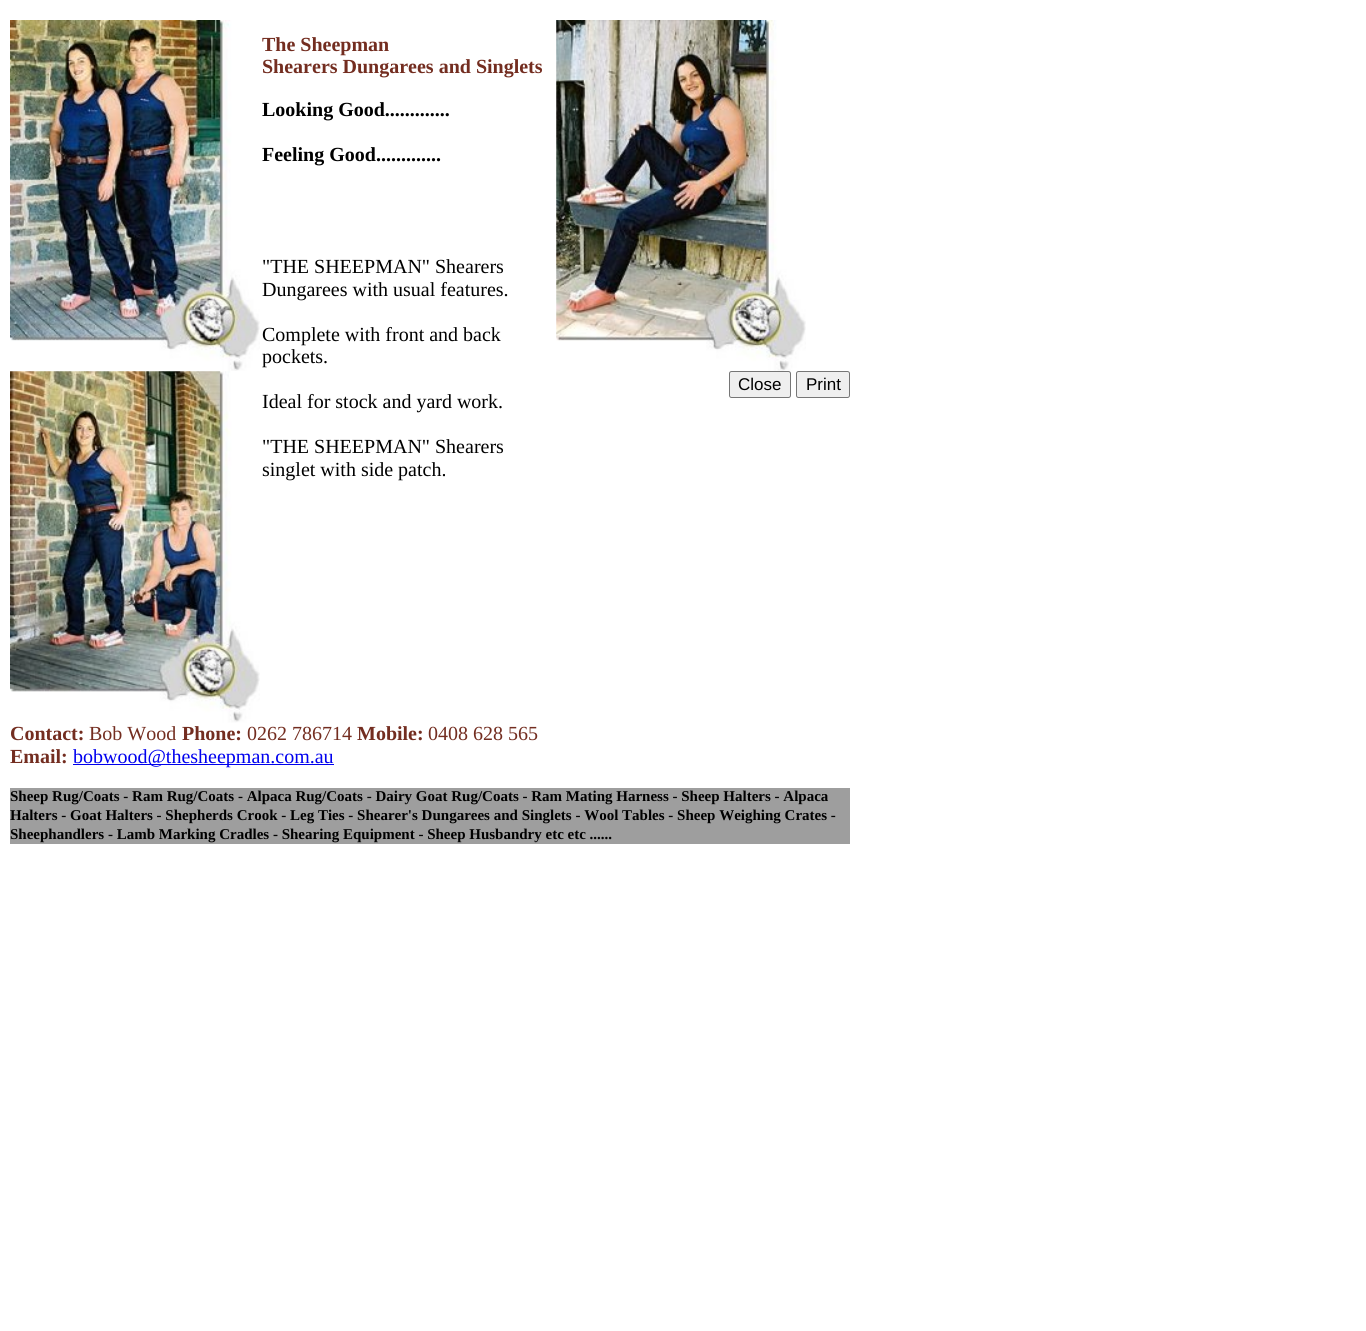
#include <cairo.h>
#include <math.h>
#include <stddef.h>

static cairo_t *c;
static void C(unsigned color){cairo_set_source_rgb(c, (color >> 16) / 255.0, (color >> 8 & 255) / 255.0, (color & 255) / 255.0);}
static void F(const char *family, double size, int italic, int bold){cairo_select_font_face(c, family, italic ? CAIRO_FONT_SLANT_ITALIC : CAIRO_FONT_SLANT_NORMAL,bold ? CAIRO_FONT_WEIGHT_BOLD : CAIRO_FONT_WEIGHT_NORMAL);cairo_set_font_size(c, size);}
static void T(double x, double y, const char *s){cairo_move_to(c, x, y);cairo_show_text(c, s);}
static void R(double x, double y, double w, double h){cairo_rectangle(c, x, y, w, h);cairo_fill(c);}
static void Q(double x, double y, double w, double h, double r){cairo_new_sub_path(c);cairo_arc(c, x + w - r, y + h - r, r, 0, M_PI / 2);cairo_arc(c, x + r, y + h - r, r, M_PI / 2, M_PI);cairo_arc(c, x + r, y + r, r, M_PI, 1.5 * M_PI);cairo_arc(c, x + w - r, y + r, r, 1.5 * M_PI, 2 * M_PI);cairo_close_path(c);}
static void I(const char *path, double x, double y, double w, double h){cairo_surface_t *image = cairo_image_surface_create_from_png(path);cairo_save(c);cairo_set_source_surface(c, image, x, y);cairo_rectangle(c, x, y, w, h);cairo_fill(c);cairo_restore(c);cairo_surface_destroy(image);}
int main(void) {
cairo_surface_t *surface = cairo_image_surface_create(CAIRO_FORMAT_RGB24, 1366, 1331);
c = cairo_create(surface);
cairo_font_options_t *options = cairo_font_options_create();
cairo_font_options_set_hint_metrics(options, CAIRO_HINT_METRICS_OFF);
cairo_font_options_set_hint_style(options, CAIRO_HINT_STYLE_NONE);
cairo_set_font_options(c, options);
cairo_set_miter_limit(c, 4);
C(0xffffff);
cairo_paint(c);
I("1.png",10,20,250,351);
I("2.png",10,371,250,352);
F("Liberation Serif",20,0,1);
C(0x732d20);
T(262,51,"The Sheepman");
T(262,73,"Shearers Dungarees and Singlets");
C(0x000000);
T(262,116,"Looking Good.............");
T(262,161,"Feeling Good.............");
F("Liberation Serif",20,0,0);
T(262,273,"\"THE SHEEPMAN\" Shearers");
T(262,296,"Dungarees with usual features.");
T(262,341,"Complete with front and back");
T(262,363,"pockets.");
T(262,408,"Ideal for stock and yard work.");
T(262,453,"\"THE SHEEPMAN\" Shearers");
T(262,476,"singlet with side patch.");
I("3.png",556,20,250,351);
C(0xefefef);
Q(729.5,371.5,61,26,2);
cairo_fill_preserve(c);
C(0x767676);
cairo_set_line_width(c,1);
cairo_stroke(c);
F("Liberation Sans",17,0,0);
C(0x000000);
T(738,390,"Close");
C(0xefefef);
Q(796.5,371.5,53,26,2);
cairo_fill_preserve(c);
C(0x767676);
cairo_stroke(c);
C(0x000000);
T(806,390,"Print");
F("Liberation Serif",20,0,1);
C(0x732d20);
T(10,740,"Contact:");
F("Liberation Serif",20,0,0);
T(89,740,"Bob Wood");
F("Liberation Serif",20,0,1);
T(182,740,"Phone:");
F("Liberation Serif",20,0,0);
T(247,740,"0262 786714");
F("Liberation Serif",20,0,1);
T(357,740,"Mobile:");
F("Liberation Serif",20,0,0);
T(428,740,"0408 628 565");
F("Liberation Serif",20,0,1);
T(10,763,"Email:");
C(0x0000ee);
R(73,764,261,1);
F("Liberation Serif",20,0,0);
T(73,763,"bobwood@thesheepman.com.au");
C(0x9e9e9e);
R(10,788,840,56);
F("Liberation Serif",15,0,1);
C(0x000000);
T(10,801,"Sheep Rug/Coats - Ram Rug/Coats - Alpaca Rug/Coats - Dairy Goat Rug/Coats - Ram Mating Harness - Sheep Halters - Alpaca");
T(10,820,"Halters - Goat Halters - Shepherds Crook - Leg Ties - Shearer's Dungarees and Singlets - Wool Tables - Sheep Weighing Crates -");
T(10,839,"Sheephandlers - Lamb Marking Cradles - Shearing Equipment - Sheep Husbandry etc etc ......");
cairo_surface_write_to_png(surface, "o.png");
cairo_font_options_destroy(options);
cairo_destroy(c);
cairo_surface_destroy(surface);
return 0;
}
